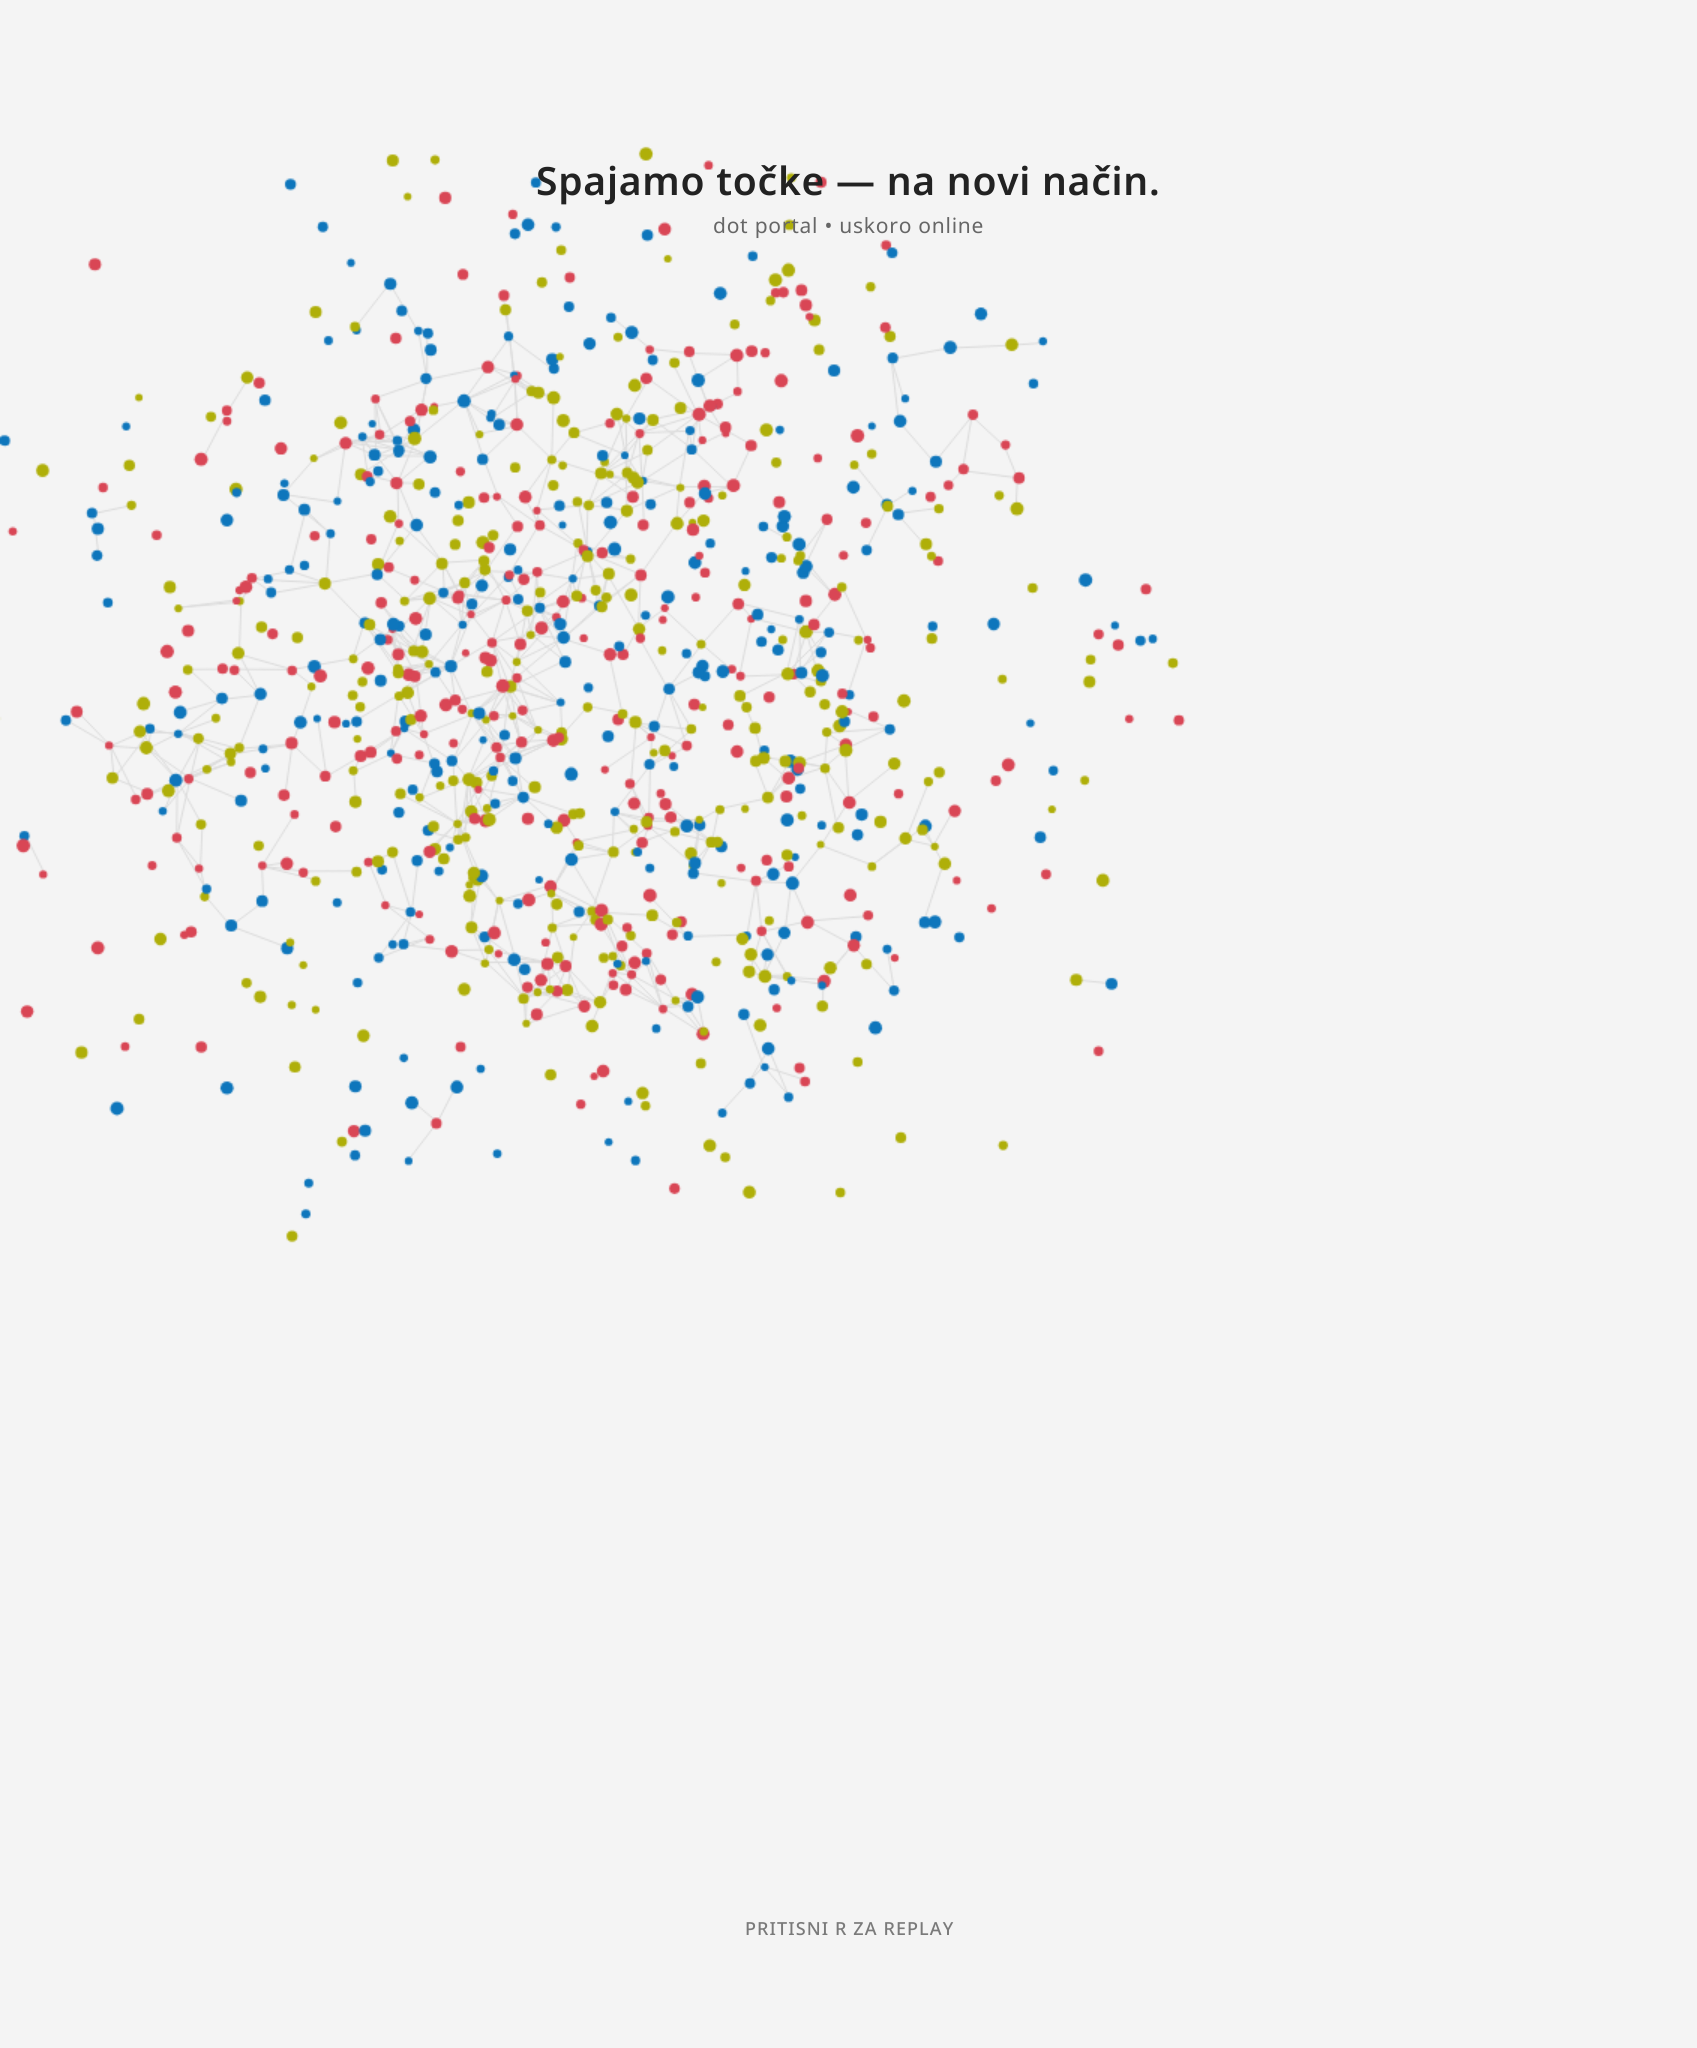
#include <cairo.h>
#include <math.h>
#include <stddef.h>

static cairo_t *c;
static void C(unsigned color){cairo_set_source_rgb(c, (color >> 16) / 255.0, (color >> 8 & 255) / 255.0, (color & 255) / 255.0);}
static void F(const char *family, double size, int italic, int bold){cairo_select_font_face(c, family, italic ? CAIRO_FONT_SLANT_ITALIC : CAIRO_FONT_SLANT_NORMAL,bold ? CAIRO_FONT_WEIGHT_BOLD : CAIRO_FONT_WEIGHT_NORMAL);cairo_set_font_size(c, size);}
static void L(double x, double y, const char *s, double letter, double word){cairo_move_to(c, x, y);while (*s) {char ch[5] = {0};int n = 0;do ch[n++] = *s++; while ((*s & 0xC0) == 0x80);cairo_show_text(c, ch);cairo_rel_move_to(c, letter + word * (*ch == ' '), 0);}}
static void I(const char *path, double x, double y, double w, double h){cairo_surface_t *image = cairo_image_surface_create_from_png(path);cairo_save(c);cairo_set_source_surface(c, image, x, y);cairo_rectangle(c, x, y, w, h);cairo_fill(c);cairo_restore(c);cairo_surface_destroy(image);}
int main(void) {
cairo_surface_t *surface = cairo_image_surface_create(CAIRO_FORMAT_RGB24, 1697, 2048);
c = cairo_create(surface);
cairo_font_options_t *options = cairo_font_options_create();
cairo_font_options_set_hint_metrics(options, CAIRO_HINT_METRICS_OFF);
cairo_font_options_set_hint_style(options, CAIRO_HINT_STYLE_NONE);
cairo_set_font_options(c, options);
cairo_set_miter_limit(c, 4);
C(0xf4f4f4);
cairo_paint(c);
I("1.png",0,146,1186,1097);
F("Noto Sans SemiBold",39,0,0);
C(0x222222);
L(536,195,"Spajamo točke — na novi način.",.75,0);
F("Noto Sans",21,0,0);
C(0x666666);
L(713,233,"dot portal • uskoro online",.75,0);
F("Noto Sans Medium",18,0,0);
C(0x7a7a7a);
L(745,1935,"PRITISNI R ZA REPLAY",1.1,0);
cairo_surface_write_to_png(surface, "o.png");
cairo_font_options_destroy(options);
cairo_destroy(c);
cairo_surface_destroy(surface);
return 0;
}
